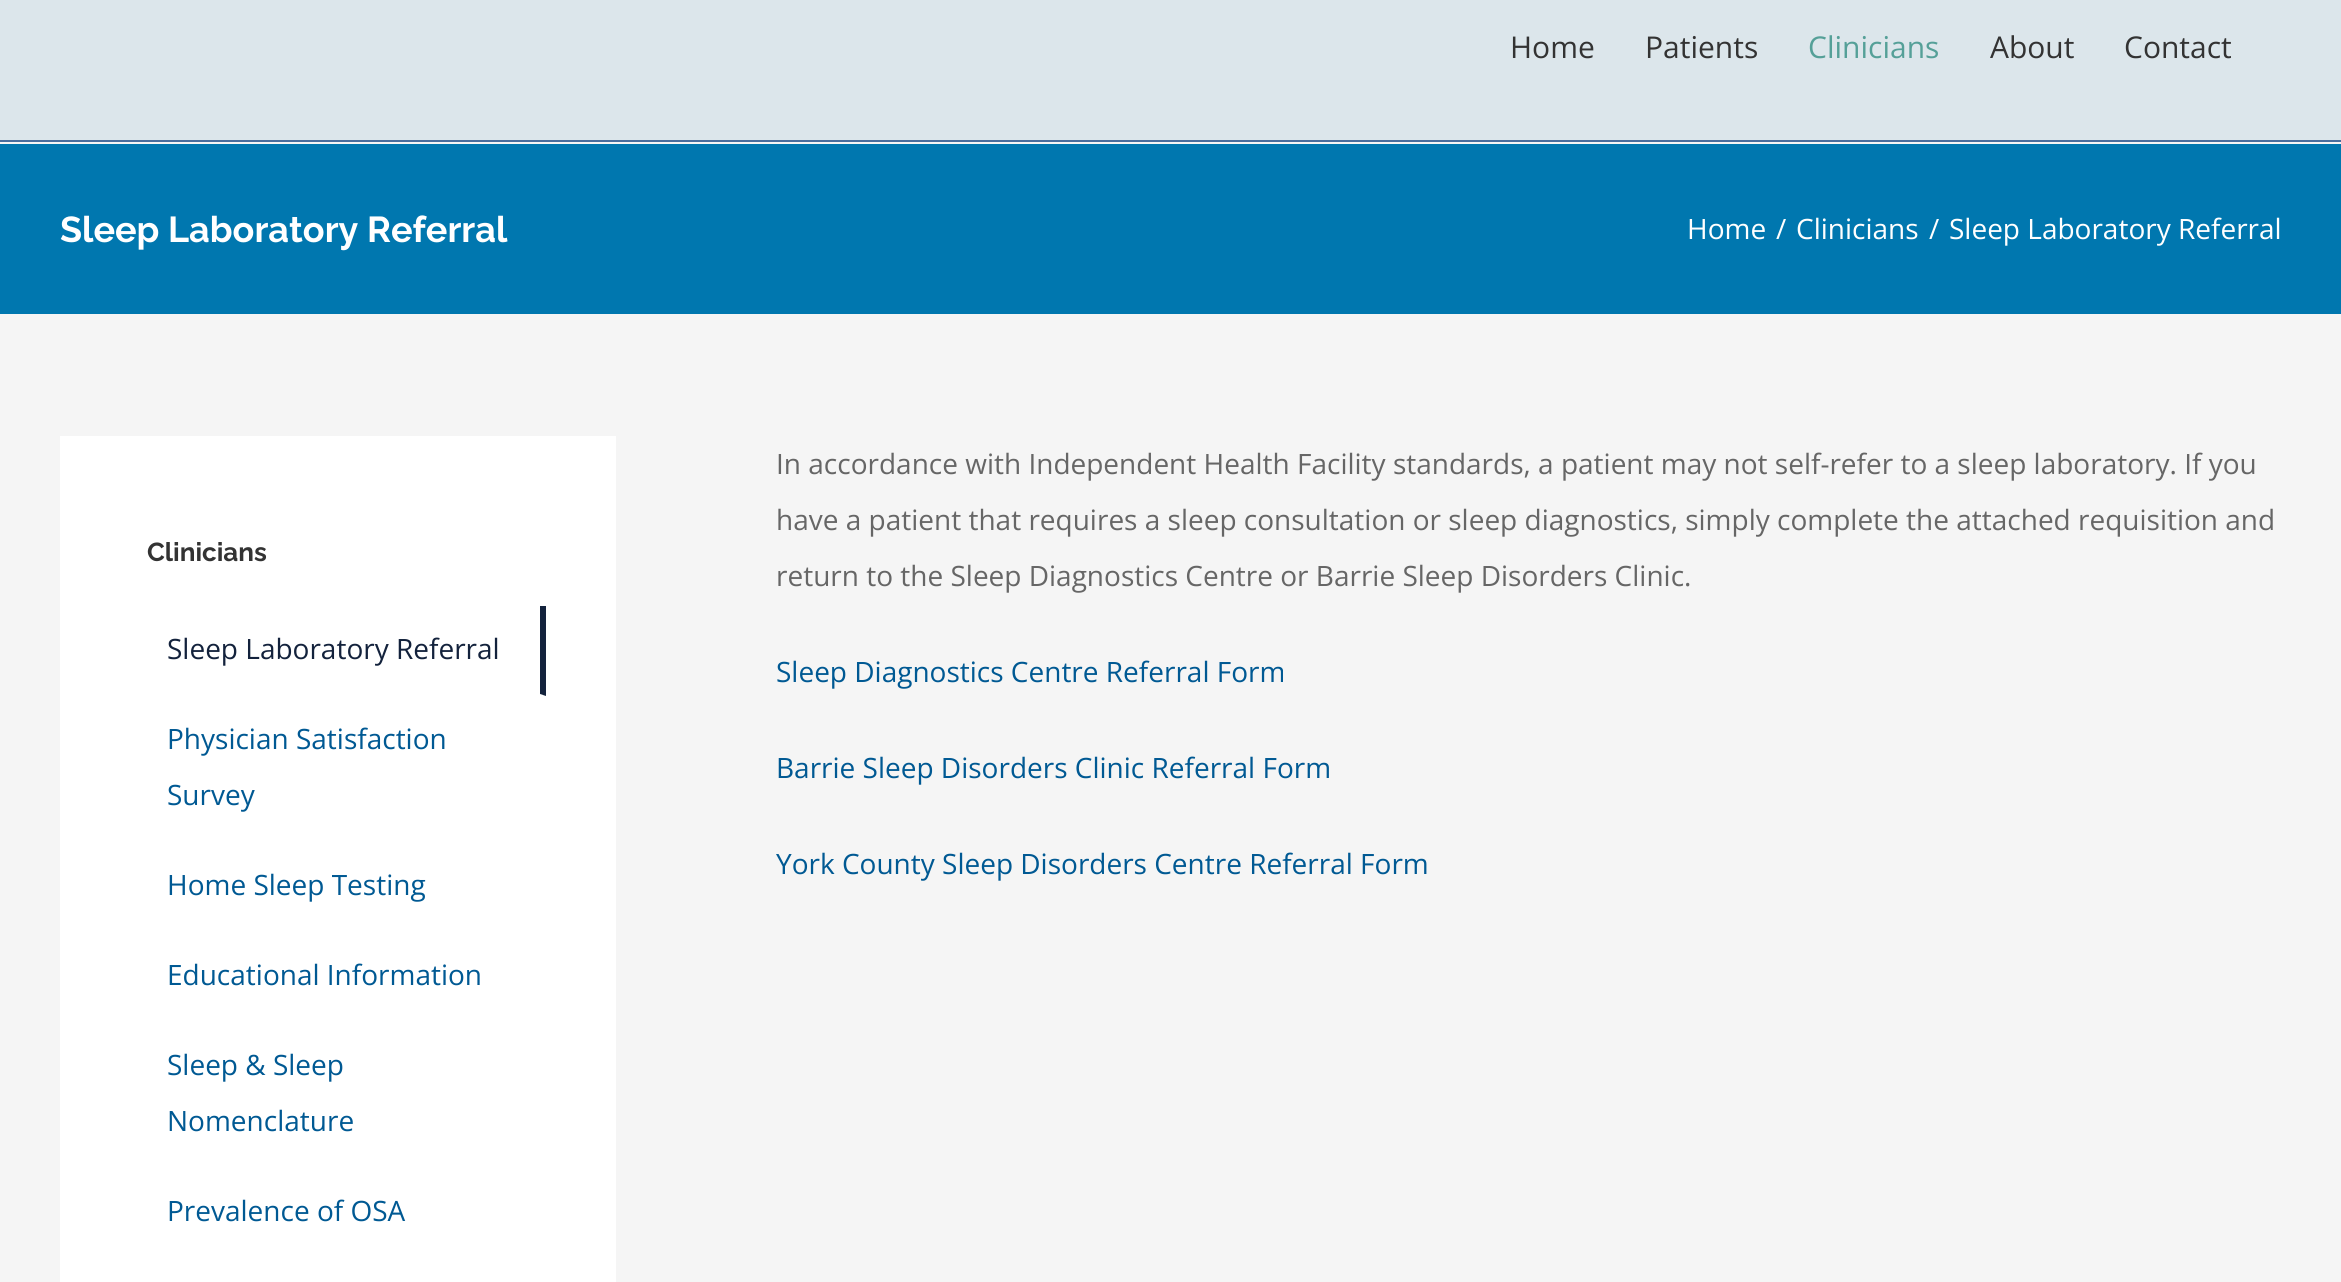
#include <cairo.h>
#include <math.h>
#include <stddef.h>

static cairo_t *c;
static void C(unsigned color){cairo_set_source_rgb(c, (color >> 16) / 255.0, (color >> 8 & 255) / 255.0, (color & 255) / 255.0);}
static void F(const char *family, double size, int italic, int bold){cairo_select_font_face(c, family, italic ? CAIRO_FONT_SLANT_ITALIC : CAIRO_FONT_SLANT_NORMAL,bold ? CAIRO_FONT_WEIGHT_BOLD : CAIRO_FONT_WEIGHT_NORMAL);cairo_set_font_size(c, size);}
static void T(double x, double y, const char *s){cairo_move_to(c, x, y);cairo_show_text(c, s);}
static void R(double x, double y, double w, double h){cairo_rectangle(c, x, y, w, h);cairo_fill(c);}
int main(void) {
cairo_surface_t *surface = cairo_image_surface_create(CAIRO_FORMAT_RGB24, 2341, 1282);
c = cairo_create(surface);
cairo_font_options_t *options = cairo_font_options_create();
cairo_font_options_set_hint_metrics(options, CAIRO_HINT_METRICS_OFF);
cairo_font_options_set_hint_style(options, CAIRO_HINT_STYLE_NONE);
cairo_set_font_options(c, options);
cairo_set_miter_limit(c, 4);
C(0xf5f5f5);
cairo_paint(c);
C(0xdce6eb);
R(0,0,2341,140);
C(0x496d9d);
R(0,140,2341,2);
F("Open Sans",30,0,0);
C(0x333333);
T(1510,58,"Home");
T(1645,58,"Patients");
C(0x55a098);
T(1808,58,"Clinicians");
C(0x333333);
T(1990,58,"About");
T(2124,58,"Contact");
C(0x0077af);
R(0,144,2341,170);
F("Raleway Thin",36,0,0);
C(0xffffff);
T(60,242,"Sleep Laboratory Referral");
F("Open Sans",28,0,0);
T(1687,239,"Home");
T(1776,239,"/");
T(1796,239,"Clinicians");
T(1929,239,"/");
T(1949,239,"Sleep Laboratory Referral");
R(60,436,556,846);
F("Raleway Thin",26,0,0);
C(0x333333);
T(147,561,"Clinicians");
C(0x13223c);
cairo_new_path(c);
cairo_move_to(c,546,606);
cairo_line_to(c,546,696);
cairo_line_to(c,540,694);
cairo_line_to(c,540,606);
cairo_close_path(c);
cairo_fill(c);
F("Open Sans",28,0,0);
T(167,659,"Sleep Laboratory Referral");
C(0x005993);
T(167,749,"Physician Satisfaction");
T(167,805,"Survey");
T(167,895,"Home Sleep Testing");
T(167,985,"Educational Information");
T(167,1075,"Sleep & Sleep");
T(167,1131,"Nomenclature");
T(167,1221,"Prevalence of OSA");
C(0x666666);
T(776,474,"In accordance with Independent Health Facility standards, a patient may not self-refer to a sleep laboratory. If you");
T(776,530,"have a patient that requires a sleep consultation or sleep diagnostics, simply complete the attached requisition and");
T(776,586,"return to the Sleep Diagnostics Centre or Barrie Sleep Disorders Clinic.");
C(0x005993);
T(776,682,"Sleep Diagnostics Centre Referral Form");
T(776,778,"Barrie Sleep Disorders Clinic Referral Form");
T(776,874,"York County Sleep Disorders Centre Referral Form");
cairo_surface_write_to_png(surface, "o.png");
cairo_font_options_destroy(options);
cairo_destroy(c);
cairo_surface_destroy(surface);
return 0;
}
